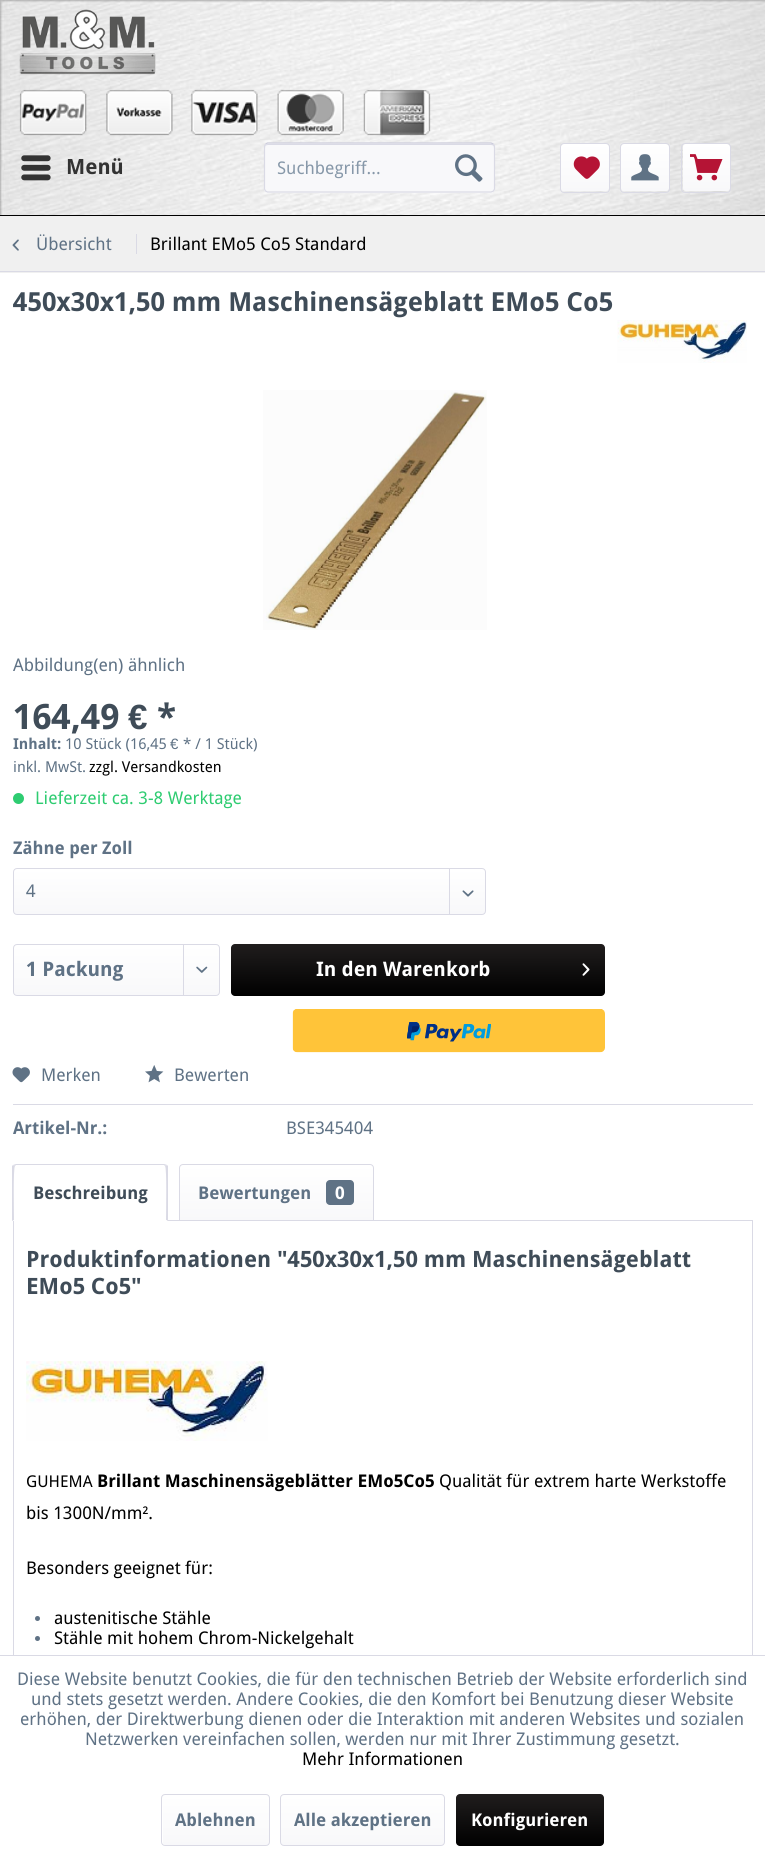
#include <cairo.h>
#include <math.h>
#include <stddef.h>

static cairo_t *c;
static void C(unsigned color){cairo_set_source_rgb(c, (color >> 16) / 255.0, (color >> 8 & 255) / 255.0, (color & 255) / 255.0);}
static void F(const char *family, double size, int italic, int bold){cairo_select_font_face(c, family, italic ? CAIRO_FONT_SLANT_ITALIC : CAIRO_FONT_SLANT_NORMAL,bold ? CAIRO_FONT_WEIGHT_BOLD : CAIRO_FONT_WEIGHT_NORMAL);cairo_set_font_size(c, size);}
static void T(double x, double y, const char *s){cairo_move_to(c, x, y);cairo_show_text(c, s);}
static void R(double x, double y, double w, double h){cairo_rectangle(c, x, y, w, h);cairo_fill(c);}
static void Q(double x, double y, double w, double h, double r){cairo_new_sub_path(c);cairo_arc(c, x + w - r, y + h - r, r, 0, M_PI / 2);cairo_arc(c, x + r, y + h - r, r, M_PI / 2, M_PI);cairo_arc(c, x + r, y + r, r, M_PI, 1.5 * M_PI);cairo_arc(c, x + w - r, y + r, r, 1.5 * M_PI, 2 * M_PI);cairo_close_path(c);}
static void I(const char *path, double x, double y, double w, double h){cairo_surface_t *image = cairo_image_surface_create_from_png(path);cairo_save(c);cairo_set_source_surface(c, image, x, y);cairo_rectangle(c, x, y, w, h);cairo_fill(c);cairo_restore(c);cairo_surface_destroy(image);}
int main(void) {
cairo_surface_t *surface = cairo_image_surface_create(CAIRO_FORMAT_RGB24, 765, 1858);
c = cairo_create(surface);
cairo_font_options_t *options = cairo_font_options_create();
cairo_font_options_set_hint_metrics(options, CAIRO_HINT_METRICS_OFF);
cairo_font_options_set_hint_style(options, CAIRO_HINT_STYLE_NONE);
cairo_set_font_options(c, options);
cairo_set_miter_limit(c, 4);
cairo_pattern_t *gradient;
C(0xffffff);
cairo_paint(c);
I("1.png",0,0,765,215);
C(0x000000);
R(0,215,765,1);
I("2.png",19,9,137,66);
I("3.png",19,89,68,47);
I("4.png",106,89,67,47);
I("5.png",191,89,67,47);
I("6.png",277,89,67,47);
I("7.png",363,89,68,47);
I("8.png",21,155,30,26);
F("Droid Sans",21,0,1);
C(0x333333);
T(66,174,"Menü");
C(0xf8f8fa);
Q(264,143,231,50,4);
cairo_fill(c);
C(0xdadae5);
cairo_new_path(c);
cairo_move_to(c,268,145);
cairo_line_to(c,491,145);
cairo_curve_to(c,493,145,494,146,494,148);
cairo_curve_to(c,494,146,494,144,492,144);
cairo_line_to(c,268,144);
cairo_curve_to(c,265,144,265,146,265,148);
cairo_curve_to(c,265,146,266,145,268,145);
cairo_close_path(c);
cairo_fill(c);
cairo_new_path(c);
cairo_move_to(c,265.5,144);
cairo_line_to(c,267.5,143);
cairo_line_to(c,491,143);
cairo_line_to(c,493.5,144);
C(0xcbcbdb);
cairo_set_line_width(c,1.2);
cairo_stroke(c);
cairo_new_path(c);
cairo_move_to(c,493.5,144);
cairo_line_to(c,494.5,146);
cairo_line_to(c,494.5,189);
cairo_line_to(c,493.5,191);
cairo_line_to(c,491,192);
cairo_line_to(c,267.5,192);
cairo_line_to(c,265.5,191);
cairo_line_to(c,264.5,189);
cairo_line_to(c,264.5,146);
cairo_line_to(c,265.5,144);
C(0xdadae5);
cairo_stroke(c);
F("Droid Sans",17.5,0,0);
C(0x8798a9);
T(277,174,"Suchbegriff...");
I("9.png",455,154,28,28);
gradient = cairo_pattern_create_linear(585,144,585,191);
cairo_pattern_add_color_stop_rgba(gradient,0,1,1,1,1);
cairo_pattern_add_color_stop_rgba(gradient,1,0.973,0.973,0.98,1);
cairo_set_source(c,gradient);
cairo_pattern_destroy(gradient);
Q(561,144,48,47,2.5);
cairo_fill(c);
Q(560.5,143.5,49,49,3.5);
C(0xdadae5);
cairo_set_line_width(c,1);
cairo_stroke(c);
I("10.png",573,156,27,23);
gradient = cairo_pattern_create_linear(645,144,645,191);
cairo_pattern_add_color_stop_rgba(gradient,0,1,1,1,1);
cairo_pattern_add_color_stop_rgba(gradient,1,0.973,0.973,0.98,1);
cairo_set_source(c,gradient);
cairo_pattern_destroy(gradient);
Q(621,144,48,47,2.5);
cairo_fill(c);
Q(620.5,143.5,49,49,3.5);
C(0xdadae5);
cairo_stroke(c);
I("11.png",631,154,28,27);
gradient = cairo_pattern_create_linear(706,144,706,191);
cairo_pattern_add_color_stop_rgba(gradient,0,1,1,1,1);
cairo_pattern_add_color_stop_rgba(gradient,1,0.973,0.973,0.98,1);
cairo_set_source(c,gradient);
cairo_pattern_destroy(gradient);
Q(683,144,47,47,2.5);
cairo_fill(c);
Q(681.5,143.5,49,49,3.5);
C(0xdadae5);
cairo_stroke(c);
I("12.png",690,154,33,27);
C(0xf0f0f0);
R(0,216,765,57);
C(0xdadae5);
R(0,271,765,1);
I("13.png",12,239,7,12);
C(0x5f7285);
T(36,250,"Übersicht");
C(0xdadae5);
R(136,234,1,20);
C(0x000000);
T(150,250,"Brillant EMo5 Co5 Standard");
F("Droid Sans",26.25,0,1);
C(0x3f4c58);
T(13,311,"450x30x1,50 mm Maschinensägeblatt EMo5 Co5");
I("14.png",617,320,130,43);
I("15.png",263,390,224,240);
F("Droid Sans",17.5,0,0);
C(0x5f7285);
T(13,671,"Abbildung(en) ähnlich");
F("Droid Sans",35,0,1);
C(0x3f4c58);
T(13,729,"164,49");
F("Liberation Sans",35,0,1);
T(128,729,"€");
F("Droid Sans",35,0,1);
T(157,729,"*");
F("Droid Sans",15,0,1);
C(0x5f7285);
T(13,749,"Inhalt:");
F("Droid Sans",15,0,0);
T(65,749,"10 Stück (16,45");
F("Liberation Sans",15,0,0);
T(170,749,"€");
F("Droid Sans",15,0,0);
T(183,749,"* / 1 Stück)");
T(13,772,"inkl. MwSt.");
C(0x000000);
T(89,772,"zzgl. Versandkosten");
C(0x2ecc71);
cairo_new_path(c);
cairo_arc(c,18.5,798.5,5.5,0,2 * M_PI);
cairo_fill(c);
F("Droid Sans",17.5,0,0);
T(35,804,"Lieferzeit ca. 3-8 Werktage");
F("Droid Sans",17.5,0,1);
C(0x5f7285);
T(13,854,"Zähne per Zoll");
gradient = cairo_pattern_create_linear(249,869,249,914);
cairo_pattern_add_color_stop_rgba(gradient,0,1,1,1,1);
cairo_pattern_add_color_stop_rgba(gradient,1,0.973,0.973,0.98,1);
cairo_set_source(c,gradient);
cairo_pattern_destroy(gradient);
Q(14,869,471,45,2.5);
cairo_fill(c);
Q(13.5,868.5,472,46,3.5);
C(0xdadae5);
cairo_stroke(c);
F("Droid Sans",17.5,0,0);
C(0x5f7285);
T(26,897,"4");
C(0xdadae5);
R(449,869,1,45);
I("16.png",462,890,12,7);
gradient = cairo_pattern_create_linear(116,945,116,995);
cairo_pattern_add_color_stop_rgba(gradient,0,1,1,1,1);
cairo_pattern_add_color_stop_rgba(gradient,1,0.973,0.973,0.98,1);
cairo_set_source(c,gradient);
cairo_pattern_destroy(gradient);
Q(14,945,205,50,2.5);
cairo_fill(c);
Q(13.5,944.5,206,51,3.5);
C(0xdadae5);
cairo_stroke(c);
F("Droid Sans",20,0,1);
C(0x5f7285);
T(26,976,"1 Packung");
C(0xdadae5);
R(183,945,1,50);
I("17.png",196,966,12,7);
gradient = cairo_pattern_create_linear(418,944,418,996);
cairo_pattern_add_color_stop_rgba(gradient,0,0.125,0.114,0.114,1);
cairo_pattern_add_color_stop_rgba(gradient,1,0,0,0,1);
cairo_set_source(c,gradient);
cairo_pattern_destroy(gradient);
Q(231,944,374,52,4);
cairo_fill(c);
C(0xffffff);
T(316,976,"In den Warenkorb");
I("18.png",582,963,8,13);
I("19.png",292,1009,313,44);
C(0xdadae5);
R(13,1104,740,1);
I("20.png",12,1067,18,16);
F("Droid Sans",17.5,0,0);
C(0x5f7285);
T(41,1081,"Merken");
I("21.png",145,1065,19,18);
T(174,1081,"Bewerten");
F("Droid Sans",17.5,0,1);
T(13,1134,"Artikel-Nr.:");
F("Droid Sans",17.5,0,0);
T(286,1134,"BSE345404");
cairo_rectangle(c,13.5,1220.5,739,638);
C(0xdadae5);
cairo_stroke(c);
C(0xffffff);
cairo_new_path(c);
cairo_move_to(c,17,1164);
cairo_line_to(c,164,1164);
cairo_curve_to(c,166,1164,168,1166,168,1168);
cairo_line_to(c,168,1221);
cairo_line_to(c,13,1221);
cairo_line_to(c,13,1168);
cairo_curve_to(c,13,1166,15,1164,17,1164);
cairo_close_path(c);
cairo_fill(c);
C(0xdadae5);
cairo_new_path(c);
cairo_move_to(c,16,1164);
cairo_line_to(c,13,1165);
cairo_line_to(c,15,1166);
cairo_line_to(c,16,1165);
cairo_line_to(c,164,1165);
cairo_line_to(c,165,1166);
cairo_line_to(c,167,1165);
cairo_line_to(c,164,1164);
cairo_close_path(c);
cairo_fill(c);
cairo_new_path(c);
cairo_move_to(c,167,1165);
cairo_line_to(c,168,1166);
cairo_line_to(c,168,1221);
cairo_line_to(c,166,1220);
cairo_curve_to(c,166,1213,167,1168,165,1166);
cairo_close_path(c);
cairo_fill(c);
C(0xffffff);
cairo_new_path(c);
cairo_move_to(c,167,1221);
cairo_line_to(c,13,1221);
cairo_line_to(c,14,1220);
cairo_line_to(c,166,1220);
cairo_close_path(c);
cairo_fill(c);
C(0xdadae5);
cairo_new_path(c);
cairo_move_to(c,12,1166);
cairo_line_to(c,13,1165);
cairo_line_to(c,15,1166);
cairo_curve_to(c,13,1168,14,1213,14,1220);
cairo_line_to(c,12,1221);
cairo_close_path(c);
cairo_fill(c);
F("Droid Sans",17.5,0,1);
C(0x3f4c58);
T(33,1199,"Beschreibung");
gradient = cairo_pattern_create_linear(276,1165,276,1220);
cairo_pattern_add_color_stop_rgba(gradient,0,1,1,1,1);
cairo_pattern_add_color_stop_rgba(gradient,1,0.973,0.973,0.98,1);
cairo_set_source(c,gradient);
cairo_pattern_destroy(gradient);
cairo_new_path(c);
cairo_move_to(c,182.5,1165);
cairo_line_to(c,370.5,1165);
cairo_curve_to(c,372,1165,373,1166,373,1167.5);
cairo_line_to(c,373,1220);
cairo_line_to(c,180,1220);
cairo_line_to(c,180,1167.5);
cairo_curve_to(c,180,1166,181,1165,182.5,1165);
cairo_close_path(c);
cairo_fill(c);
cairo_new_path(c);
cairo_move_to(c,183,1164.5);
cairo_line_to(c,370,1164.5);
cairo_curve_to(c,372,1164.5,373.5,1166,373.5,1168);
cairo_line_to(c,373.5,1220.5);
cairo_line_to(c,179.5,1220.5);
cairo_line_to(c,179.5,1168);
cairo_curve_to(c,179.5,1166,181,1164.5,183,1164.5);
cairo_close_path(c);
C(0xdadae5);
cairo_stroke(c);
C(0x5f7285);
T(198,1199,"Bewertungen");
Q(326,1180,28,25,4);
cairo_fill(c);
C(0xffffff);
T(335,1199,"0");
F("Droid Sans",22.5,0,1);
C(0x3f4c58);
T(26,1267,"Produktinformationen \"450x30x1,50 mm Maschinensägeblatt");
T(26,1294,"EMo5 Co5\"");
I("22.png",26,1361,242,80);
F("Droid Sans",16.25,0,0);
C(0x000000);
T(26,1487,"GUHEMA");
F("Droid Sans",17.5,0,1);
T(97,1487,"Brillant Maschinensägeblätter EMo5Co5");
F("Droid Sans",17.5,0,0);
T(439,1487,"Qualität für extrem harte Werkstoffe");
T(26,1519,"bis 1300N/mm².");
T(26,1574,"Besonders geeignet für:");
C(0x5f7285);
cairo_new_path(c);
cairo_arc(c,37.5,1618.5,2.5,0,2 * M_PI);
cairo_fill(c);
C(0x000000);
T(54,1624,"austenitische Stähle");
C(0x5f7285);
cairo_new_path(c);
cairo_arc(c,37.5,1638.5,2.5,0,2 * M_PI);
cairo_fill(c);
C(0x000000);
T(54,1644,"Stähle mit hohem Chrom-Nickelgehalt");
C(0xffffff);
R(13,1656,740,202);
C(0xdadae5);
R(0,1655,765,1);
C(0x5f7285);
T(17,1685,"Diese Website benutzt Cookies, die für den technischen Betrieb der Website erforderlich sind");
T(31,1705,"und stets gesetzt werden. Andere Cookies, die den Komfort bei Benutzung dieser Website");
T(20,1725,"erhöhen, der Direktwerbung dienen oder die Interaktion mit anderen Websites und sozialen");
T(85,1745,"Netzwerken vereinfachen sollen, werden nur mit Ihrer Zustimmung gesetzt.");
C(0x000000);
T(302,1765,"Mehr Informationen");
gradient = cairo_pattern_create_linear(216,1795,216,1845);
cairo_pattern_add_color_stop_rgba(gradient,0,1,1,1,1);
cairo_pattern_add_color_stop_rgba(gradient,1,0.973,0.973,0.98,1);
cairo_set_source(c,gradient);
cairo_pattern_destroy(gradient);
Q(163,1795,106,50,2.5);
cairo_fill(c);
Q(161.5,1794.5,108,51,3.5);
C(0xdadae5);
cairo_stroke(c);
F("Droid Sans",17.5,0,1);
C(0x5f7285);
T(175,1826,"Ablehnen");
gradient = cairo_pattern_create_linear(363,1795,363,1845);
cairo_pattern_add_color_stop_rgba(gradient,0,1,1,1,1);
cairo_pattern_add_color_stop_rgba(gradient,1,0.973,0.973,0.98,1);
cairo_set_source(c,gradient);
cairo_pattern_destroy(gradient);
Q(281,1795,163,50,2.5);
cairo_fill(c);
Q(280.5,1794.5,164,51,3.5);
C(0xdadae5);
cairo_stroke(c);
C(0x5f7285);
T(294,1826,"Alle akzeptieren");
gradient = cairo_pattern_create_linear(530,1794,530,1846);
cairo_pattern_add_color_stop_rgba(gradient,0,0.125,0.114,0.114,1);
cairo_pattern_add_color_stop_rgba(gradient,1,0,0,0,1);
cairo_set_source(c,gradient);
cairo_pattern_destroy(gradient);
Q(456,1794,148,52,4);
cairo_fill(c);
C(0xffffff);
T(471,1826,"Konfigurieren");
cairo_surface_write_to_png(surface, "o.png");
cairo_font_options_destroy(options);
cairo_destroy(c);
cairo_surface_destroy(surface);
return 0;
}
